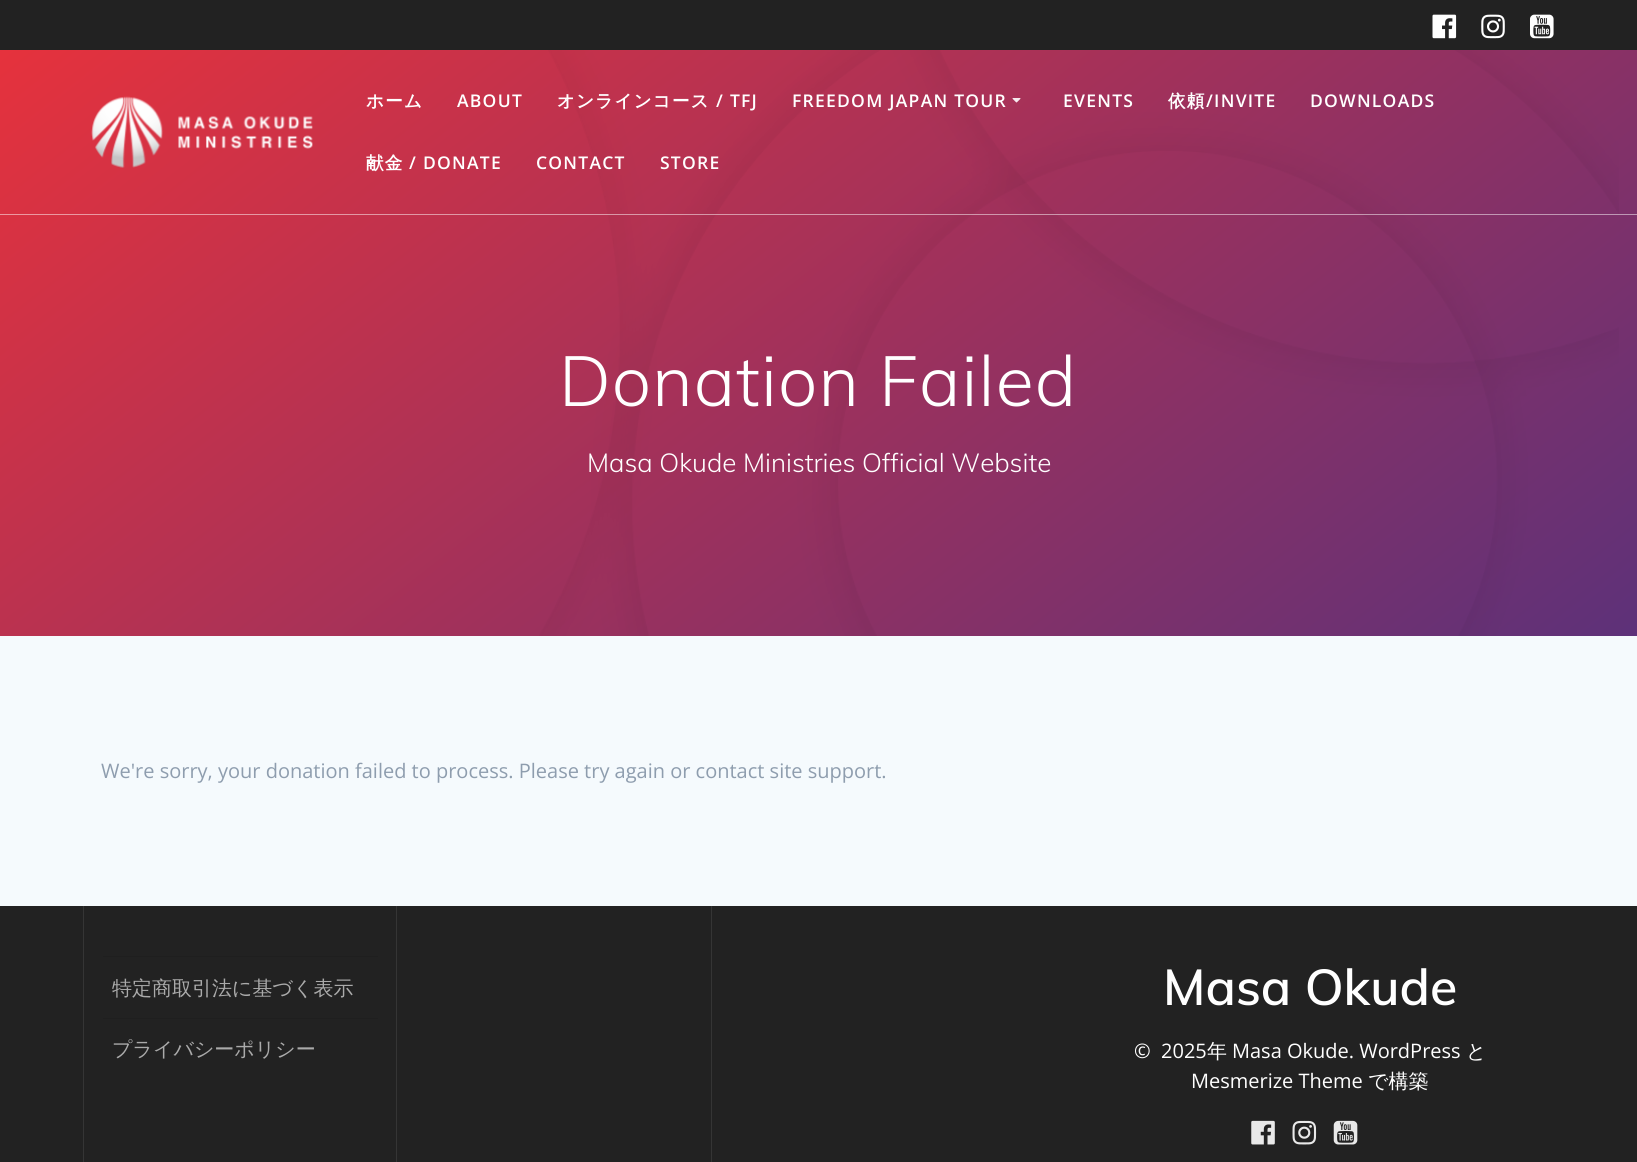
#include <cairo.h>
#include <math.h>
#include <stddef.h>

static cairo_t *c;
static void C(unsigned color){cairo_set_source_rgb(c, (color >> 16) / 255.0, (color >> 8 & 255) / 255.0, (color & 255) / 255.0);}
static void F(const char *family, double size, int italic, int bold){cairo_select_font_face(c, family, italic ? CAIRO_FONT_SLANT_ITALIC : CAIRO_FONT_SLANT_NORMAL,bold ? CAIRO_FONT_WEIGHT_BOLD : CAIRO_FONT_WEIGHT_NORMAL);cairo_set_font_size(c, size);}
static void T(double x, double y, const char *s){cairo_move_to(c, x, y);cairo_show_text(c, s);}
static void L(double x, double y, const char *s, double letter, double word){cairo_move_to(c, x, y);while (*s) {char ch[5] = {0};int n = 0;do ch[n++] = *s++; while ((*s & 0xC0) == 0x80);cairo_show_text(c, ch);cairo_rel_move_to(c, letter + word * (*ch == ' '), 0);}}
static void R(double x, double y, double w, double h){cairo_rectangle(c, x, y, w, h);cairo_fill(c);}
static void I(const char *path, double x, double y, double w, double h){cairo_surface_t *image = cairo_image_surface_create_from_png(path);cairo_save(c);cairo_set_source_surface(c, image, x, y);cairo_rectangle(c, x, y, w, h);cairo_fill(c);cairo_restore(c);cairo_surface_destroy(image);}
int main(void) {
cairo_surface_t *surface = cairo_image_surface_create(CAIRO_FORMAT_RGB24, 1637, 1162);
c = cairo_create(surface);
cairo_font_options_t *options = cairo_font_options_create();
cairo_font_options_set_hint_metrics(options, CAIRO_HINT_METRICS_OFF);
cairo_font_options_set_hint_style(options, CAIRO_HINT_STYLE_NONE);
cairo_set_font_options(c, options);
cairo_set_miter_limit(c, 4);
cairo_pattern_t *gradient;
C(0xffffff);
cairo_paint(c);
C(0x222222);
R(0,0,1637,50);
I("1.png",1432,14,25,25);
I("2.png",1481,14,24,25);
I("3.png",1530,14,24,25);
gradient = cairo_pattern_create_linear(354,-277,1283,913);
cairo_pattern_add_color_stop_rgba(gradient,0,0.914,0.196,0.231,1);
cairo_pattern_add_color_stop_rgba(gradient,1,0.365,0.192,0.475,1);
cairo_set_source(c,gradient);
cairo_pattern_destroy(gradient);
R(0,50,1637,586);
I("6.png",539,50,1080,586);
cairo_set_source_rgba(c,1,1,1,0.5);
R(0,214,1637,1);
I("4.png",91,96,222,72);
F("WenQuanYi Zen Hei",17.5,0,1);
C(0xffffff);
L(366,107,"ホーム",1.25,0);
F("Open Sans SemiBold",17.5,0,0);
L(457,107,"ABOUT",1.25,0);
F("WenQuanYi Zen Hei",17.5,0,1);
L(557,107,"オンラインコース",1.25,0);
F("Open Sans SemiBold",17.5,0,0);
L(716,107,"/ TFJ",1.25,0);
L(792,107,"FREEDOM JAPAN TOUR",1.25,0);
I("5.png",1012,98,9,5);
L(1063,107,"EVENTS",1.25,0);
F("WenQuanYi Zen Hei",17.5,0,1);
L(1168,107,"依頼",1.25,0);
F("Open Sans SemiBold",17.5,0,0);
L(1206,107,"/INVITE",1.25,0);
L(1310,107,"DOWNLOADS",1.25,0);
F("WenQuanYi Zen Hei",17.5,0,1);
L(366,169,"献金",1.25,0);
F("Open Sans SemiBold",17.5,0,0);
L(409,169,"/ DONATE",1.25,0);
L(536,169,"CONTACT",1.25,0);
L(660,169,"STORE",1.25,0);
F("Muli Light",70,0,0);
L(559,406,"Donation Failed",1.1,0);
F("Muli Light",26,0,0);
T(587,472,"Masa Okude Ministries Official Website");
C(0xf5fafd);
R(0,636,1637,270);
F("Open Sans",20,0,0);
C(0x8e9dae);
T(101,778,"We're sorry, your donation failed to process. Please try again or contact site support.");
C(0x222222);
R(0,906,1637,256);
C(0x353535);
R(83,906,1,256);
C(0x1f1f1f);
R(103,956,275,1);
F("WenQuanYi Zen Hei Medium",20,0,0);
C(0xaaaaaa);
T(112,995,"特定商取引法に基づく表示");
C(0x1f1f1f);
R(103,1018,275,1);
C(0xaaaaaa);
T(112,1056,"プライバシーポリシー");
C(0x353535);
R(396,906,1,256);
R(711,906,1,256);
F("Muli SemiBold",50,0,0);
C(0xffffff);
T(1163,1005,"Masa Okude");
F("Open Sans",20,0,0);
T(1134,1058,"©  2025");
F("WenQuanYi Zen Hei Medium",20,0,0);
T(1207,1058,"年");
F("Open Sans",20,0,0);
T(1232,1058,"Masa Okude. WordPress");
F("WenQuanYi Zen Hei Medium",20,0,0);
T(1466,1058,"と");
F("Open Sans",20,0,0);
T(1191,1088,"Mesmerize Theme");
F("WenQuanYi Zen Hei Medium",20,0,0);
T(1368,1088,"で構築");
I("7.png",1251,1120,24,25);
I("8.png",1292,1120,25,25);
I("9.png",1333,1120,25,25);
cairo_surface_write_to_png(surface, "o.png");
cairo_font_options_destroy(options);
cairo_destroy(c);
cairo_surface_destroy(surface);
return 0;
}
